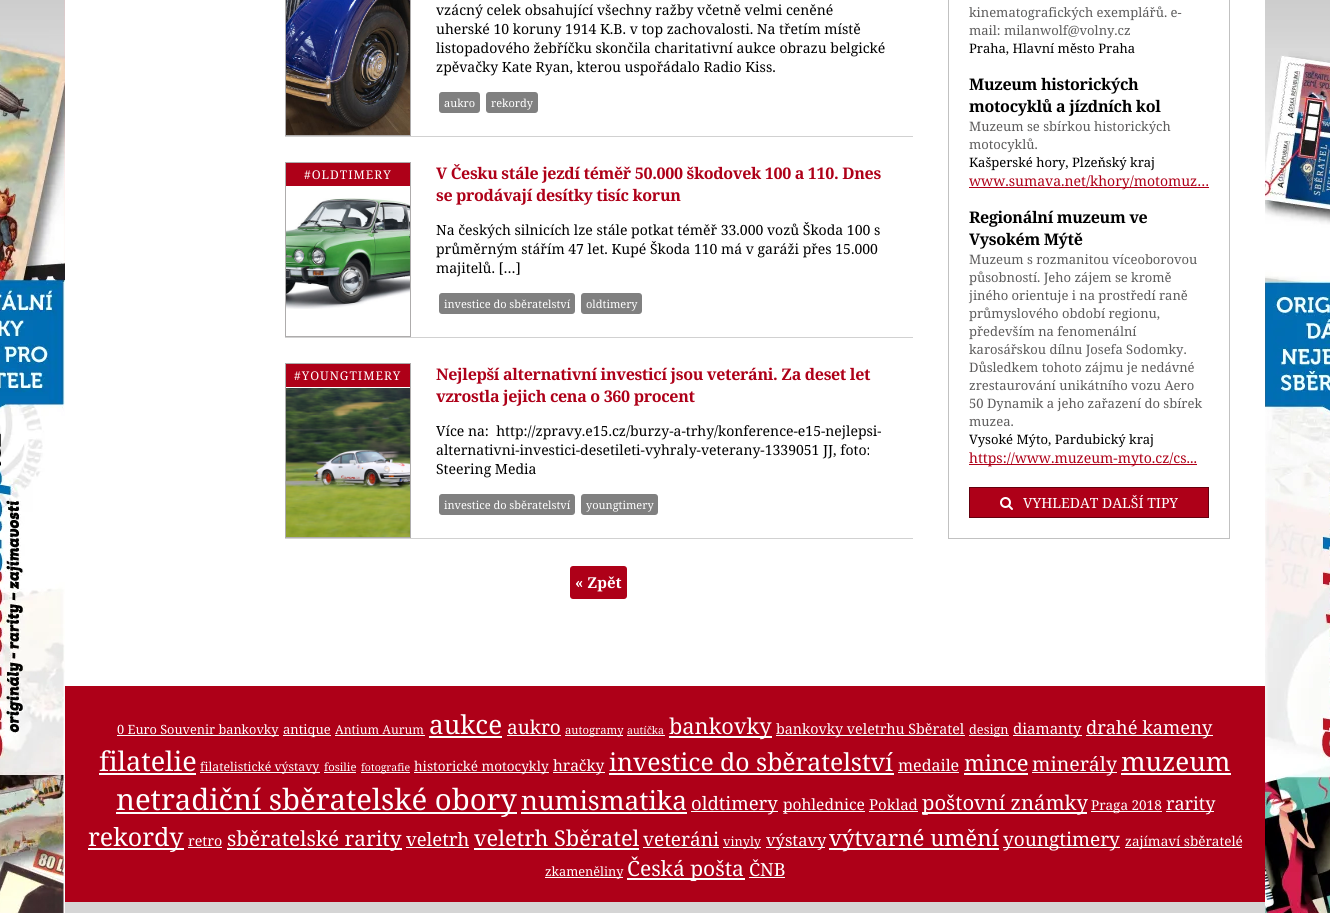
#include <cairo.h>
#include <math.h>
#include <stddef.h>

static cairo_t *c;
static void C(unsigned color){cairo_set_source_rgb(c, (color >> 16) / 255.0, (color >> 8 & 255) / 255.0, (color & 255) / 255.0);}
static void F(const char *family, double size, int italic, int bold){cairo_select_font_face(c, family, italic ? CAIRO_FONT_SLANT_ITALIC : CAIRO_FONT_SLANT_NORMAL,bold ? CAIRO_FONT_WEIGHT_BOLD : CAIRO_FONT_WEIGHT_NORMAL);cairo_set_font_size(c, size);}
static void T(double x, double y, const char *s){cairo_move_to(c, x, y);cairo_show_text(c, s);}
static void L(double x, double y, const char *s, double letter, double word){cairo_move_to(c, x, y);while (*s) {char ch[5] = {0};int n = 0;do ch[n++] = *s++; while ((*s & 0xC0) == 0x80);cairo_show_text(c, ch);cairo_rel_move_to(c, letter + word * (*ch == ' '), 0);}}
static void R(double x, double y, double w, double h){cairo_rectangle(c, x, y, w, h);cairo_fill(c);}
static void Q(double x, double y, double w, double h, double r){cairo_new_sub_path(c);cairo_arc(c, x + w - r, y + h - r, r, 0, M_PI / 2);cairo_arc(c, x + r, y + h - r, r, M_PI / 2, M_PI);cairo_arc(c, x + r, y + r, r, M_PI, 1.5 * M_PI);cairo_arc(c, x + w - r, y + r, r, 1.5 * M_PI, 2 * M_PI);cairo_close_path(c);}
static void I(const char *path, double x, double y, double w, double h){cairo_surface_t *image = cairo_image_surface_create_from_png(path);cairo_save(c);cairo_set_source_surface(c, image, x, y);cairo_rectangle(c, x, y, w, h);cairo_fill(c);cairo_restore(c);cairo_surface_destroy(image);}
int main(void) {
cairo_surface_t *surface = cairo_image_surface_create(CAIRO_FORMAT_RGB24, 1330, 913);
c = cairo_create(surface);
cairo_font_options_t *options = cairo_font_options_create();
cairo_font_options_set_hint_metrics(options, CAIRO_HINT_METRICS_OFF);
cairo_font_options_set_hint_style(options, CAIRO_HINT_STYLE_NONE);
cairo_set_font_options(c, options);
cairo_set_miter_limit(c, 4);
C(0xffffff);
cairo_paint(c);
I("1.png",0,0,1330,913);
C(0xffffff);
R(65,0,1200,686);
C(0xd1d1d1);
R(285,136,628,1);
I("2.png",286,0,124,135);
cairo_rectangle(c,285.5,-.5,125,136);
C(0xaeacac);
cairo_set_line_width(c,1);
cairo_stroke(c);
F("Noto Serif",14,0,0);
C(0x000000);
T(436,15,"vzácný celek obsahující všechny ražby včetně velmi ceněné");
T(436,34,"uherské 10 koruny 1914 K.B. v top zachovalosti. Na třetím místě");
T(436,53,"listopadového žebříčku skončila charitativní aukce obrazu belgické");
T(436,72,"zpěvačky Kate Ryan, kterou uspořádalo Radio Kiss.");
C(0x808080);
Q(439,92,41,21,3);
cairo_fill(c);
F("Noto Serif",11,0,0);
C(0xffffff);
T(444,107,"aukro");
C(0x808080);
Q(486,92,52,21,3);
cairo_fill(c);
C(0xffffff);
T(491,107,"rekordy");
C(0xd1d1d1);
R(285,337,628,1);
I("3.png",286,198,124,111);
cairo_rectangle(c,285.5,162.5,125,174);
C(0xaeacac);
cairo_stroke(c);
C(0xae0018);
R(286,163,124,23);
F("Noto Serif",12,0,0);
C(0xffffff);
L(304,179,"#OLDTIMERY",1,0);
F("Noto Serif",16,0,1);
C(0xae0018);
L(436,179,"V Česku stále jezdí téměř 50.000 škodovek 100 a 110. Dnes",-.32,0);
L(436,201,"se prodávají desítky tisíc korun",-.32,0);
F("Noto Serif",14,0,0);
C(0x000000);
T(436,235,"Na českých silnicích lze stále potkat téměř 33.000 vozů Škoda 100 s");
T(436,254,"průměrným stářím 47 let. Kupé Škoda 110 má v garáži přes 15.000");
T(436,273,"majitelů. […]");
C(0x808080);
Q(439,293,136,21,3);
cairo_fill(c);
F("Noto Serif",11,0,0);
C(0xffffff);
T(444,308,"investice do sběratelství");
C(0x808080);
Q(581,293,61,21,3);
cairo_fill(c);
C(0xffffff);
T(586,308,"oldtimery");
C(0xd1d1d1);
R(285,538,628,1);
I("4.png",286,388,124,149);
cairo_rectangle(c,285.5,363.5,125,174);
C(0xaeacac);
cairo_stroke(c);
C(0xae0018);
R(286,364,124,23);
F("Noto Serif",12,0,0);
C(0xffffff);
L(294,380,"#YOUNGTIMERY",1,0);
F("Noto Serif",16,0,1);
C(0xae0018);
L(436,380,"Nejlepší alternativní investicí jsou veteráni. Za deset let",-.32,0);
L(436,402,"vzrostla jejich cena o 360 procent",-.32,0);
F("Noto Serif",14,0,0);
C(0x000000);
T(436,436,"Více na:  http://zpravy.e15.cz/burzy-a-trhy/konference-e15-nejlepsi-");
T(436,455,"alternativni-investici-desetileti-vyhraly-veterany-1339051 JJ, foto:");
T(436,474,"Steering Media");
C(0x808080);
Q(439,494,136,21,3);
cairo_fill(c);
F("Noto Serif",11,0,0);
C(0xffffff);
T(444,509,"investice do sběratelství");
C(0x808080);
Q(581,494,77,21,3);
cairo_fill(c);
C(0xffffff);
T(586,509,"youngtimery");
C(0xae0018);
Q(570,566,57,33,3);
cairo_fill(c);
F("Noto Serif",15,0,1);
C(0xffffff);
T(575,588,"« Zpět");
cairo_rectangle(c,948.5,-.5,281,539);
C(0xc1c1c1);
cairo_stroke(c);
F("Noto Serif",13,0,0);
C(0x5d5c5c);
T(969,17,"kinematografických exemplářů. e-");
T(969,35,"mail: milanwolf@volny.cz");
C(0x000000);
T(969,53,"Praha, Hlavní město Praha");
F("Noto Serif",16,0,1);
L(969,90,"Muzeum historických",-.32,0);
L(969,112,"motocyklů a jízdních kol",-.32,0);
F("Noto Serif",13,0,0);
C(0x5d5c5c);
T(969,131,"Muzeum se sbírkou historických");
T(969,149,"motocyklů.");
C(0x000000);
T(969,167,"Kašperské hory, Plzeňský kraj");
C(0xae0018);
R(969,187,240,1);
F("Noto Serif",14,0,0);
T(969,186,"www.sumava.net/khory/motomuz…");
F("Noto Serif",16,0,1);
C(0x000000);
L(969,223,"Regionální muzeum ve",-.32,0);
L(969,245,"Vysokém Mýtě",-.32,0);
F("Noto Serif",13,0,0);
C(0x5d5c5c);
T(969,264,"Muzeum s rozmanitou víceoborovou");
T(969,282,"působností. Jeho zájem se kromě");
T(969,300,"jiného orientuje i na prostředí raně");
T(969,318,"průmyslového období regionu,");
T(969,336,"především na fenomenální");
T(969,354,"karosářskou dílnu Josefa Sodomky.");
T(969,372,"Důsledkem tohoto zájmu je nedávné");
T(969,390,"zrestaurování unikátního vozu Aero");
T(969,408,"50 Dynamik a jeho zařazení do sbírek");
T(969,426,"muzea.");
C(0x000000);
T(969,444,"Vysoké Mýto, Pardubický kraj");
C(0xae0018);
R(969,464,228,1);
F("Noto Serif",14,0,0);
T(969,463,"https://www.muzeum-myto.cz/cs...");
cairo_rectangle(c,969.5,487.5,239,30);
cairo_fill_preserve(c);
C(0x64000e);
cairo_stroke(c);
I("5.png",1000,497,13,13);
C(0xffffff);
T(1023,508,"VYHLEDAT DALŠÍ TIPY");
C(0xae0018);
R(65,686,1200,216);
C(0xffffff);
R(117,735,162,1);
F("Noto Serif",12.75,0,0);
T(117,734,"0 Euro Souvenir bankovky");
R(283,735,48,1);
F("Noto Serif",13,0,0);
T(283,734,"antique");
F("Noto Serif",12.25,0,0);
T(335,734,"Antium Aurum");
R(335,735,90,1);
F("Noto Serif",26,0,0);
T(429,734,"aukce");
R(429,736,73,2);
F("Noto Serif",19,0,0);
T(507,734,"aukro");
R(507,735,54,1);
R(565,735,58,1);
F("Noto Serif",11.25,0,0);
T(565,734,"autogramy");
F("Noto Serif",10.5,0,0);
T(627,734,"autíčka");
R(627,735,38,1);
R(669,736,103,2);
F("Noto Serif",21.75,0,0);
T(669,734,"bankovky");
R(776,735,189,1);
F("Noto Serif",14.25,0,0);
T(776,734,"bankovky veletrhu Sběratel");
R(969,735,40,1);
F("Noto Serif",12.75,0,0);
T(969,734,"design");
R(1013,735,69,1);
F("Noto Serif",15,0,0);
T(1013,734,"diamanty");
R(1086,735,127,1);
F("Noto Serif",18.25,0,0);
T(1086,734,"drahé kameny");
F("Noto Serif",27,0,0);
T(99,771,"filatelie");
R(99,773,97,2);
R(200,772,120,1);
F("Noto Serif",12.25,0,0);
T(200,771,"filatelistické výstavy");
F("Noto Serif",11.25,0,0);
T(324,771,"fosilie");
R(324,772,32,1);
R(361,772,49,1);
F("Noto Serif",10.5,0,0);
T(361,771,"fotografie");
R(414,772,135,1);
F("Noto Serif",13.5,0,0);
T(414,771,"historické motocykly");
R(553,772,52,1);
F("Noto Serif",15.5,0,0);
T(553,771,"hračky");
F("Noto Serif",24.75,0,0);
T(609,771,"investice do sběratelství");
R(609,773,285,2);
F("Noto Serif",16,0,0);
T(898,771,"medaile");
R(898,772,61,1);
F("Noto Serif",22,0,0);
T(964,771,"mince");
R(964,773,64,2);
R(1032,772,85,1);
F("Noto Serif",19.5,0,0);
T(1032,771,"minerály");
F("Noto Serif",26,0,0);
T(1121,771,"muzeum");
R(1121,773,110,2);
R(116,812,401,2);
F("Noto Serif",29.3,0,0);
T(116,810,"netradiční sběratelské obory");
F("Noto Serif",26.25,0,0);
T(521,810,"numismatika");
R(521,812,166,2);
R(691,811,87,1);
F("Noto Serif",18.5,0,0);
T(691,810,"oldtimery");
R(783,811,82,1);
F("Noto Serif",15.5,0,0);
T(783,810,"pohlednice");
F("Noto Serif",15,0,0);
T(869,810,"Poklad");
R(869,811,49,1);
R(922,812,165,2);
F("Noto Serif",20.25,0,0);
T(922,810,"poštovní známky");
R(1091,811,71,1);
F("Noto Serif",13.5,0,0);
T(1091,810,"Praga 2018");
R(1166,811,48,1);
F("Noto Serif",18,0,0);
T(1166,810,"rarity");
R(88,848,96,2);
F("Noto Serif",25,0,0);
T(88,846,"rekordy");
F("Noto Serif",14.25,0,0);
T(188,846,"retro");
R(188,847,34,1);
R(227,848,175,2);
F("Noto Serif",20.75,0,0);
T(227,846,"sběratelské rarity");
F("Noto Serif",18.5,0,0);
T(406,846,"veletrh");
R(406,847,63,1);
F("Noto Serif",21.75,0,0);
T(474,846,"veletrh Sběratel");
R(474,848,165,2);
F("Noto Serif",19,0,0);
T(643,846,"veteráni");
R(643,847,76,1);
R(723,847,38,1);
F("Noto Serif",12.75,0,0);
T(723,846,"vinyly");
R(766,847,59,1);
F("Noto Serif",16.5,0,0);
T(766,846,"výstavy");
R(829,848,170,2);
F("Noto Serif",22.25,0,0);
T(829,846,"výtvarné umění");
R(1003,847,117,1);
F("Noto Serif",19,0,0);
T(1003,846,"youngtimery");
R(1125,847,117,1);
F("Noto Serif",13.5,0,0);
T(1125,846,"zajímaví sběratelé");
R(545,877,78,1);
F("Noto Serif",12.75,0,0);
T(545,876,"zkameněliny");
R(627,878,118,2);
F("Noto Serif",21,0,0);
T(627,876,"Česká pošta");
F("Noto Serif",18,0,0);
T(749,876,"ČNB");
R(749,877,36,1);
C(0xd5d5d5);
R(65,902,1200,11);
cairo_surface_write_to_png(surface, "o.png");
cairo_font_options_destroy(options);
cairo_destroy(c);
cairo_surface_destroy(surface);
return 0;
}
